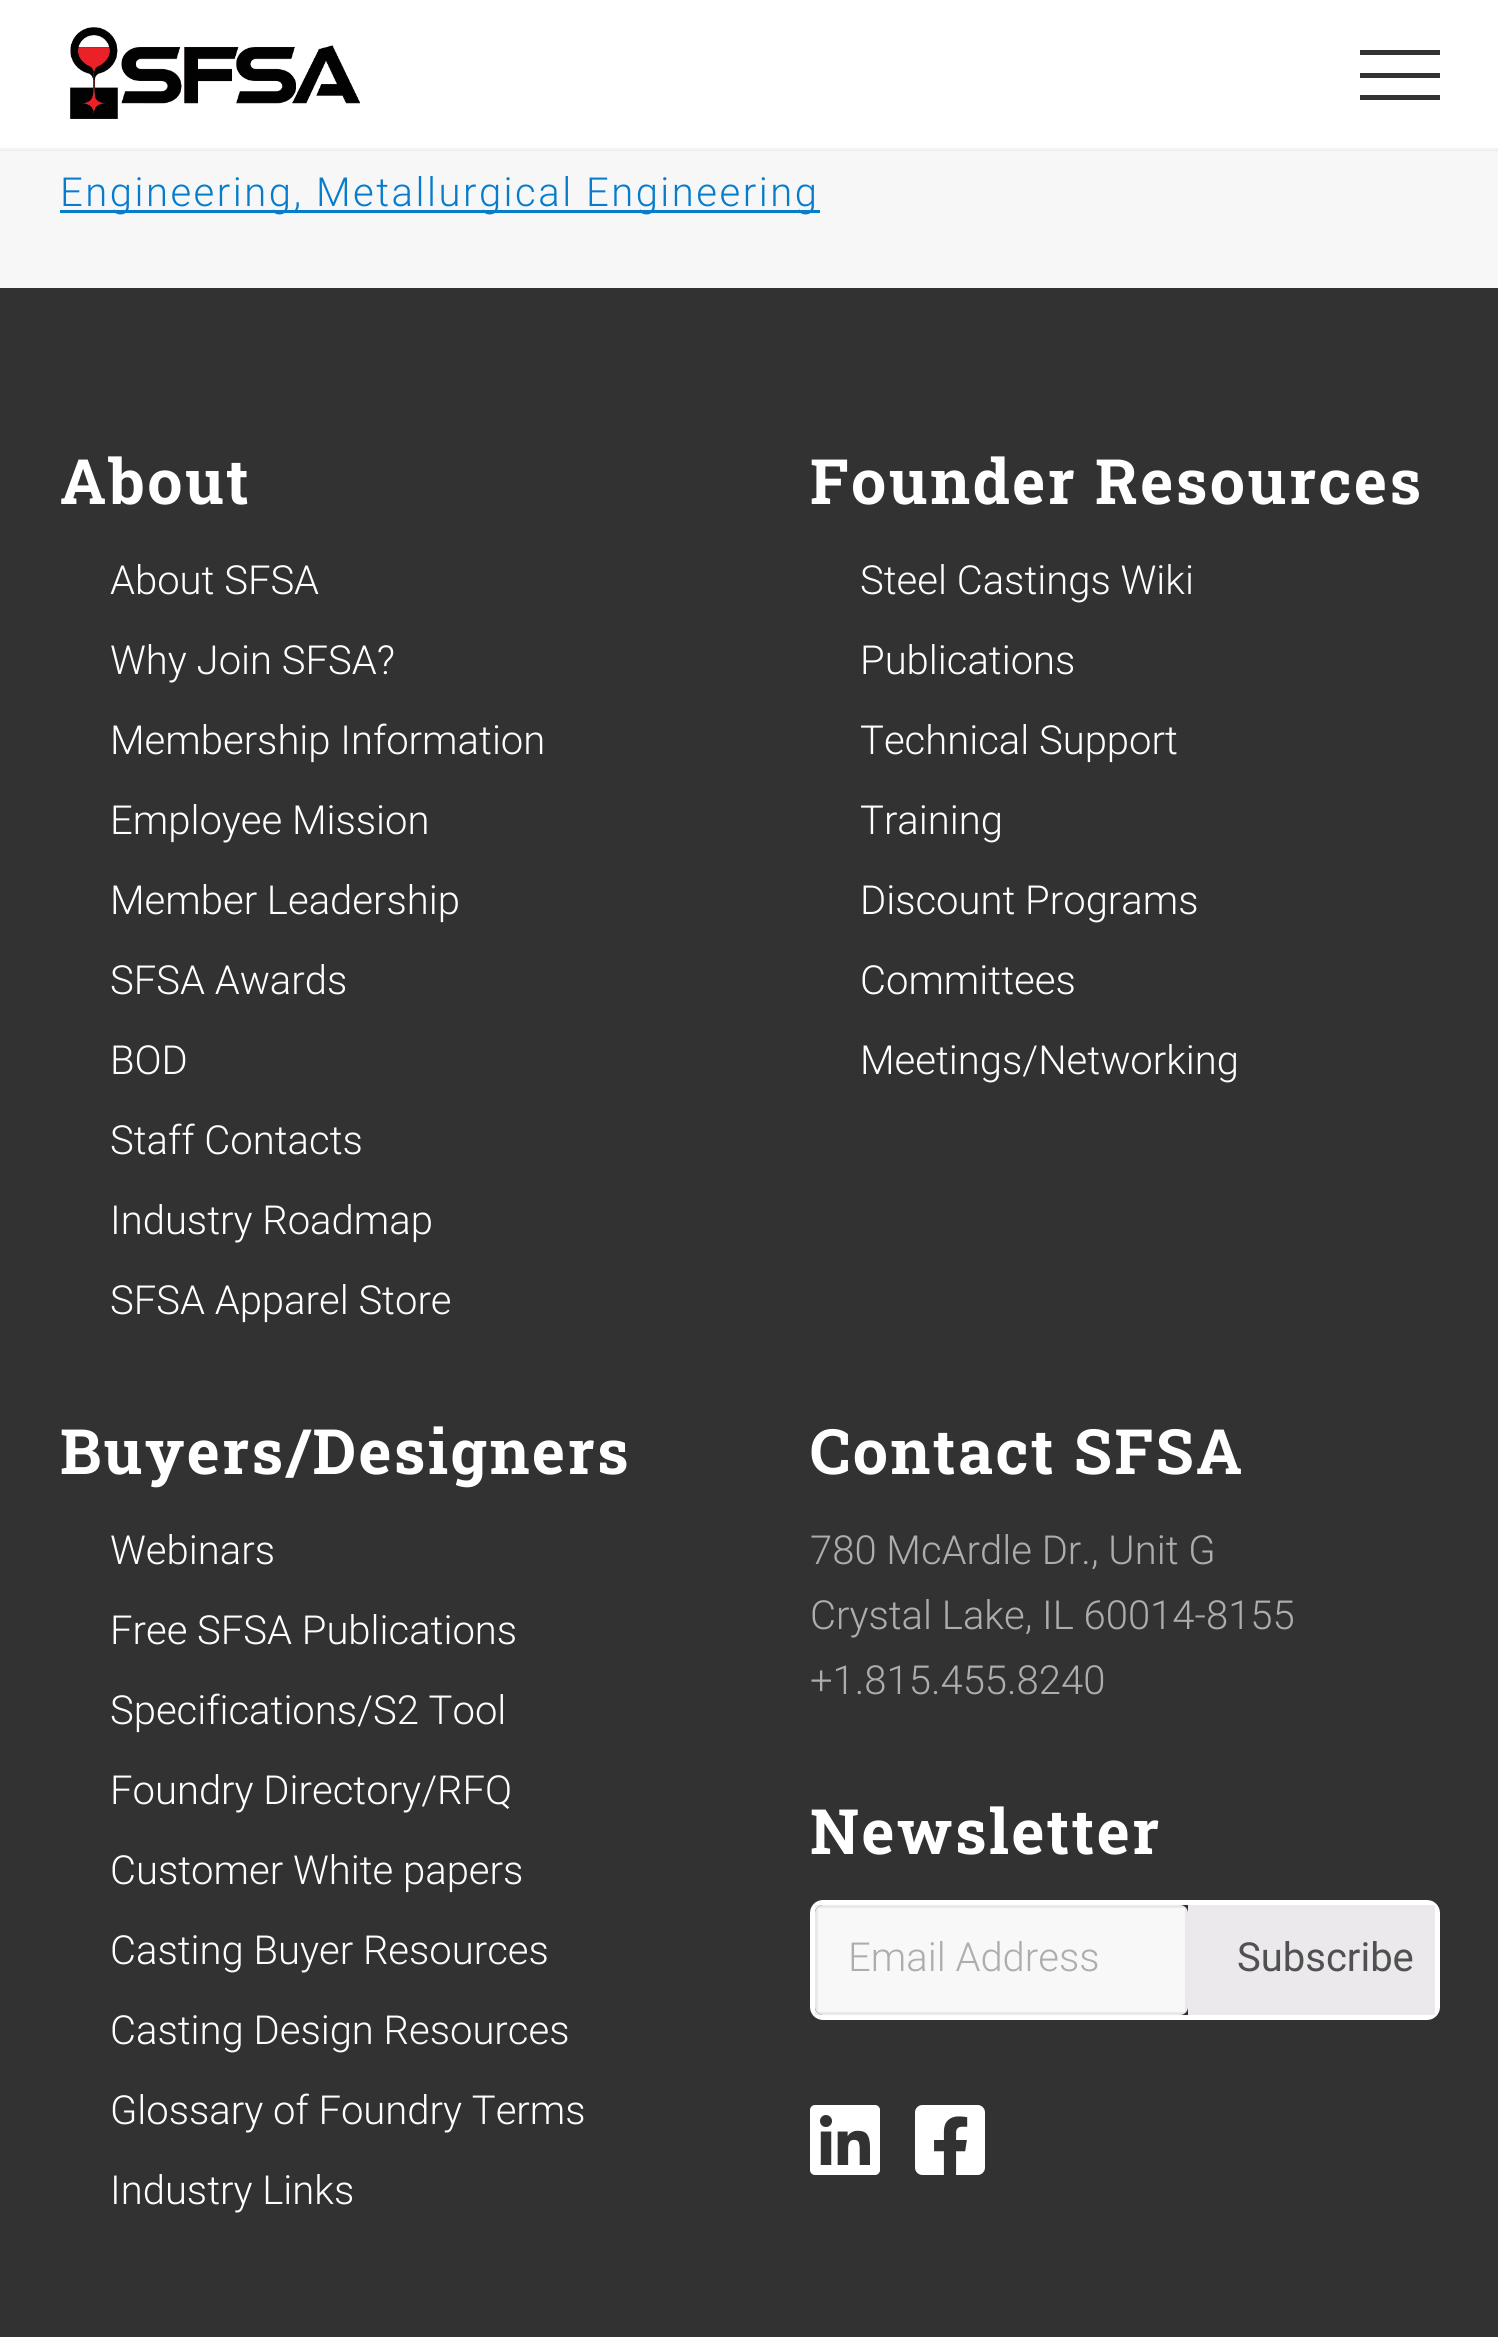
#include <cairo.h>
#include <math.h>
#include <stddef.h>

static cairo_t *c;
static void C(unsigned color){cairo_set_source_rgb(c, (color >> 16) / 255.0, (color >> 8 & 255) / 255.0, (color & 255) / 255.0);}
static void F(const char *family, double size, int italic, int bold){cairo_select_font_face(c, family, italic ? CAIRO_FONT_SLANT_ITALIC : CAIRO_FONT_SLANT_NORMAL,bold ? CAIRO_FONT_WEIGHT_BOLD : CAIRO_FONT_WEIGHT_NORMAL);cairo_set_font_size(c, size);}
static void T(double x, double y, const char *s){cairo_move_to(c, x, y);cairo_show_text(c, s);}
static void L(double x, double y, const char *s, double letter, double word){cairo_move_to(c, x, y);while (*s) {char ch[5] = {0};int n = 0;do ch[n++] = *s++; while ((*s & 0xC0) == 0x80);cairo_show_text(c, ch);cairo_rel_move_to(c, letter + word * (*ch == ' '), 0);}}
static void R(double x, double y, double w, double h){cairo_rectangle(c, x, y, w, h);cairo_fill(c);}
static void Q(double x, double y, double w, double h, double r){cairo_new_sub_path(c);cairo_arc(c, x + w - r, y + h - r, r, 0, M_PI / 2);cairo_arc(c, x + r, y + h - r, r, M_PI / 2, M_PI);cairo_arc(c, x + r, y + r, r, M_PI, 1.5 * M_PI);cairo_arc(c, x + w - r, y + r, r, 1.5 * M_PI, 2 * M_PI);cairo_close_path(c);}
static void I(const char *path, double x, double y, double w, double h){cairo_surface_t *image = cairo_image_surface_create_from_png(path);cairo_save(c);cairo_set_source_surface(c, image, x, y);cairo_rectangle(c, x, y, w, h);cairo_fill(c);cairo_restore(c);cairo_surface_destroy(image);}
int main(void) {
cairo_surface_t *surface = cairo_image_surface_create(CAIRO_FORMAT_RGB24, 1498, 2337);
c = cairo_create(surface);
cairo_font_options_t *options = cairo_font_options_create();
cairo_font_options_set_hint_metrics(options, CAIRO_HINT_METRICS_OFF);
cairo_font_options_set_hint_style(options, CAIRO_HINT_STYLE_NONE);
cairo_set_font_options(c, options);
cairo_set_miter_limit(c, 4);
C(0x323232);
cairo_paint(c);
C(0xffffff);
R(0,0,1498,150);
C(0xf7f7f7);
R(0,150,1498,138);
cairo_set_source_rgba(c,0,0,0,0.05);
R(0,148,1498,3);
I("1.png",70,27,290,92);
C(0x323232);
R(1360,73,80,5);
R(1360,50,80,5);
R(1360,95,80,5);
C(0x067ccc);
R(60,210,760,3);
F("Roboto Light",40,0,0);
L(60,206,"Engineering, Metallurgical Engineering",2.5,0);
F("Roboto Slab",62.5,0,1);
C(0xffffff);
L(60,504,"About",2.5,0);
F("Roboto Light",40,0,0);
T(110,594,"About SFSA");
T(110,674,"Why Join SFSA?");
T(110,754,"Membership Information");
T(110,834,"Employee Mission");
T(110,914,"Member Leadership");
T(110,994,"SFSA Awards");
T(110,1074,"BOD");
T(110,1154,"Staff Contacts");
T(110,1234,"Industry Roadmap");
T(110,1314,"SFSA Apparel Store");
F("Roboto Slab",62.5,0,1);
L(810,504,"Founder Resources",2.5,0);
F("Roboto Light",40,0,0);
T(860,594,"Steel Castings Wiki");
T(860,674,"Publications");
T(860,754,"Technical Support");
T(860,834,"Training");
T(860,914,"Discount Programs");
T(860,994,"Committees");
T(860,1074,"Meetings/Networking");
F("Roboto Slab",62.5,0,1);
L(60,1474,"Buyers/Designers",2.5,0);
F("Roboto Light",40,0,0);
T(110,1564,"Webinars");
T(110,1644,"Free SFSA Publications");
T(110,1724,"Specifications/S2 Tool");
T(110,1804,"Foundry Directory/RFQ");
T(110,1884,"Customer White papers");
T(110,1964,"Casting Buyer Resources");
T(110,2044,"Casting Design Resources");
T(110,2124,"Glossary of Foundry Terms");
T(110,2204,"Industry Links");
F("Roboto Slab",62.5,0,1);
L(810,1474,"Contact SFSA",2.5,0);
F("Roboto Light",40,0,0);
C(0xadadad);
T(810,1564,"780 McArdle Dr., Unit G");
T(810,1629,"Crystal Lake, IL 60014-8155");
T(810,1694,"+1.815.455.8240");
F("Roboto Slab",62.5,0,1);
C(0xffffff);
L(810,1854,"Newsletter",2.5,0);
Q(812.5,1902.5,625,115,10.5);
cairo_set_line_width(c,5);
cairo_stroke(c);
C(0xf8f8f8);
Q(815,1905,373,110,8);
cairo_fill(c);
cairo_rectangle(c,816.5,1906.5,370,107);
cairo_set_source_rgba(c,0,0,0,0.06);
cairo_set_line_width(c,3);
cairo_stroke(c);
F("Roboto Light",40,0,0);
C(0xadadad);
T(848,1971,"Email Address");
C(0xebe9eb);
R(1188,1905,247,110);
F("Roboto",40,0,0);
C(0x515151);
T(1237,1971,"Subscribe");
I("2.png",810,2105,70,70);
I("3.png",915,2105,70,70);
cairo_surface_write_to_png(surface, "o.png");
cairo_font_options_destroy(options);
cairo_destroy(c);
cairo_surface_destroy(surface);
return 0;
}
